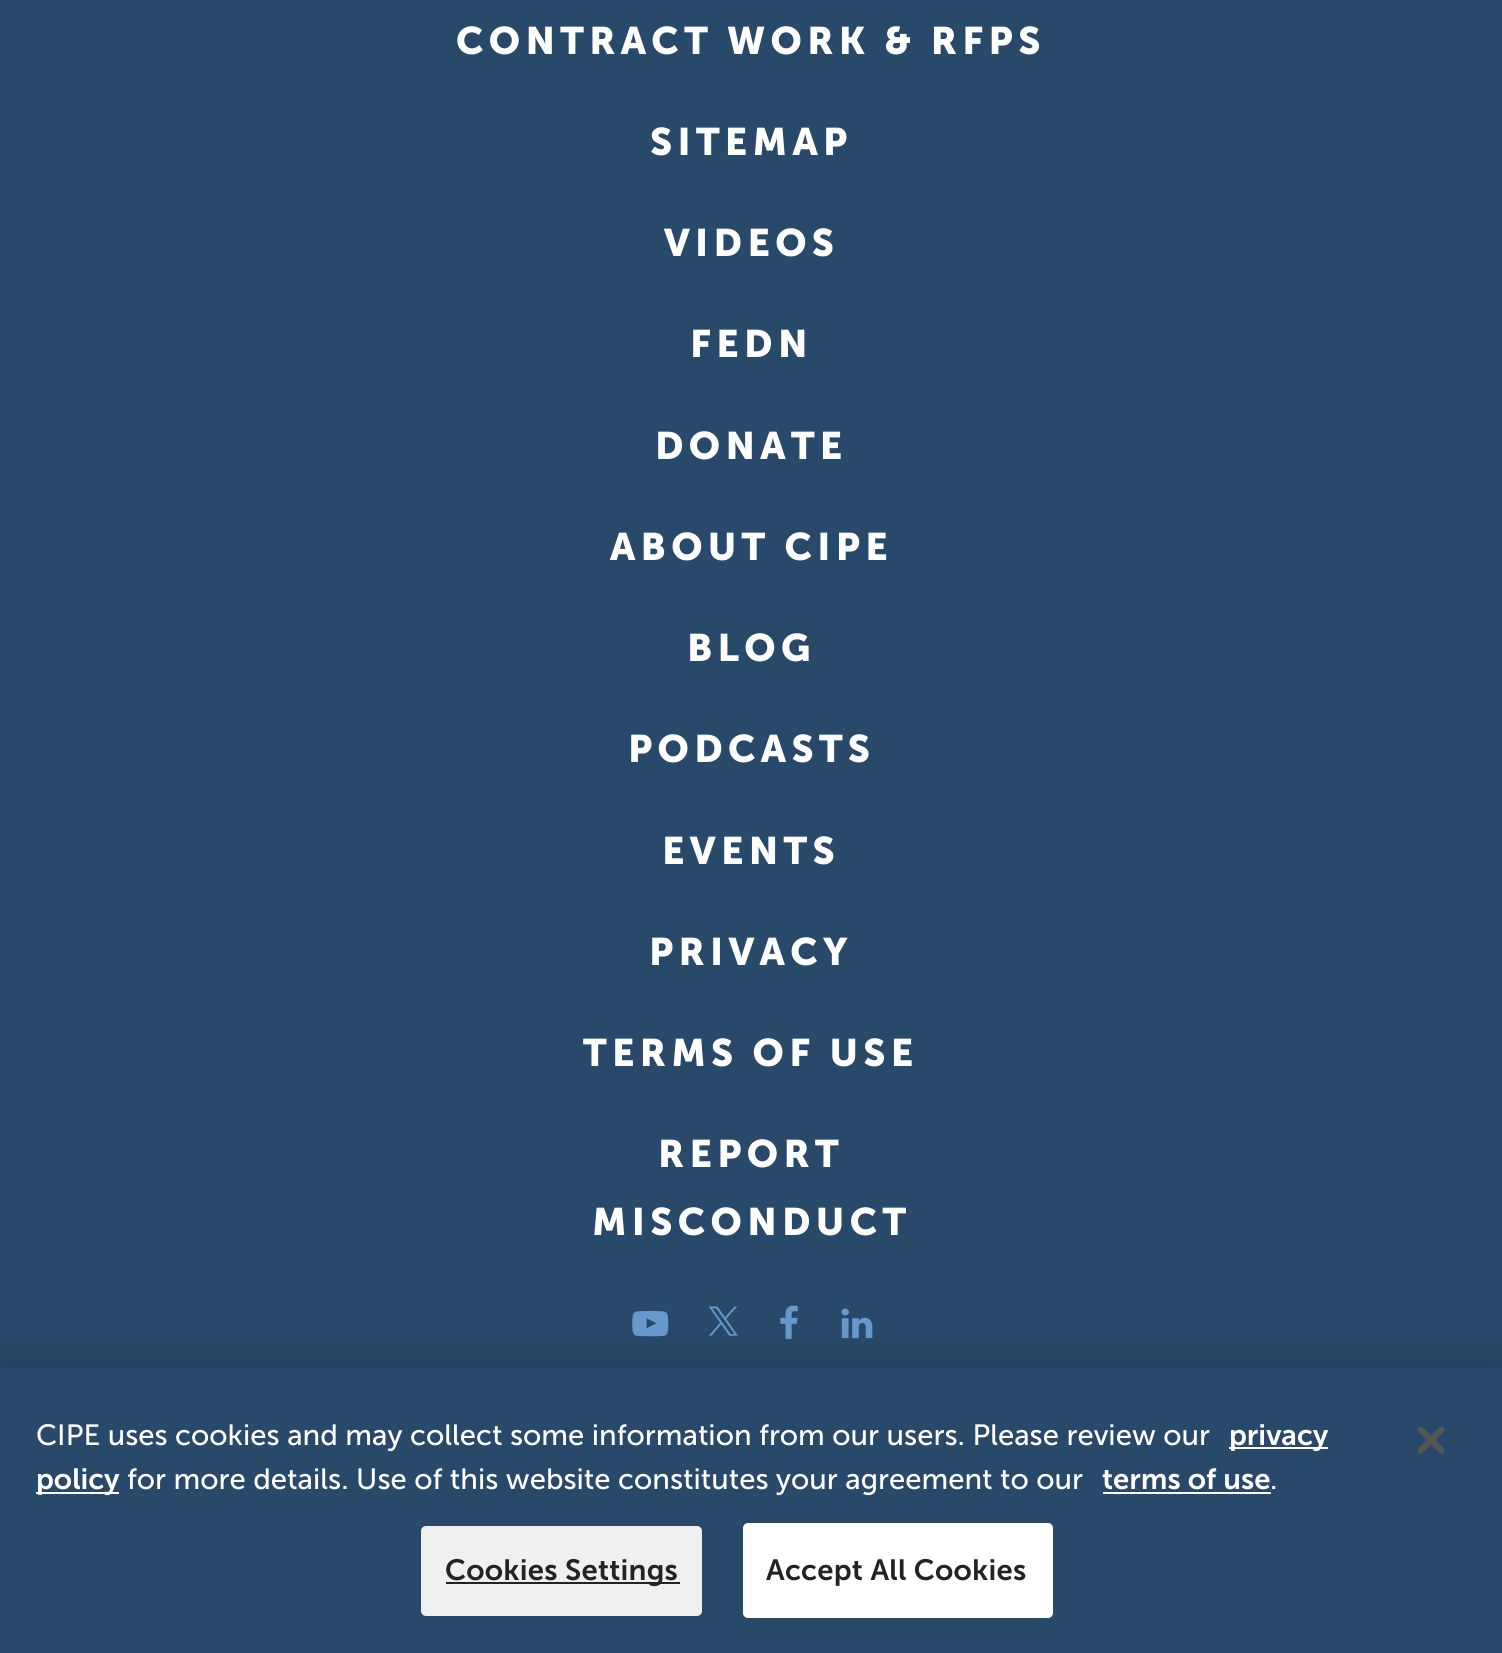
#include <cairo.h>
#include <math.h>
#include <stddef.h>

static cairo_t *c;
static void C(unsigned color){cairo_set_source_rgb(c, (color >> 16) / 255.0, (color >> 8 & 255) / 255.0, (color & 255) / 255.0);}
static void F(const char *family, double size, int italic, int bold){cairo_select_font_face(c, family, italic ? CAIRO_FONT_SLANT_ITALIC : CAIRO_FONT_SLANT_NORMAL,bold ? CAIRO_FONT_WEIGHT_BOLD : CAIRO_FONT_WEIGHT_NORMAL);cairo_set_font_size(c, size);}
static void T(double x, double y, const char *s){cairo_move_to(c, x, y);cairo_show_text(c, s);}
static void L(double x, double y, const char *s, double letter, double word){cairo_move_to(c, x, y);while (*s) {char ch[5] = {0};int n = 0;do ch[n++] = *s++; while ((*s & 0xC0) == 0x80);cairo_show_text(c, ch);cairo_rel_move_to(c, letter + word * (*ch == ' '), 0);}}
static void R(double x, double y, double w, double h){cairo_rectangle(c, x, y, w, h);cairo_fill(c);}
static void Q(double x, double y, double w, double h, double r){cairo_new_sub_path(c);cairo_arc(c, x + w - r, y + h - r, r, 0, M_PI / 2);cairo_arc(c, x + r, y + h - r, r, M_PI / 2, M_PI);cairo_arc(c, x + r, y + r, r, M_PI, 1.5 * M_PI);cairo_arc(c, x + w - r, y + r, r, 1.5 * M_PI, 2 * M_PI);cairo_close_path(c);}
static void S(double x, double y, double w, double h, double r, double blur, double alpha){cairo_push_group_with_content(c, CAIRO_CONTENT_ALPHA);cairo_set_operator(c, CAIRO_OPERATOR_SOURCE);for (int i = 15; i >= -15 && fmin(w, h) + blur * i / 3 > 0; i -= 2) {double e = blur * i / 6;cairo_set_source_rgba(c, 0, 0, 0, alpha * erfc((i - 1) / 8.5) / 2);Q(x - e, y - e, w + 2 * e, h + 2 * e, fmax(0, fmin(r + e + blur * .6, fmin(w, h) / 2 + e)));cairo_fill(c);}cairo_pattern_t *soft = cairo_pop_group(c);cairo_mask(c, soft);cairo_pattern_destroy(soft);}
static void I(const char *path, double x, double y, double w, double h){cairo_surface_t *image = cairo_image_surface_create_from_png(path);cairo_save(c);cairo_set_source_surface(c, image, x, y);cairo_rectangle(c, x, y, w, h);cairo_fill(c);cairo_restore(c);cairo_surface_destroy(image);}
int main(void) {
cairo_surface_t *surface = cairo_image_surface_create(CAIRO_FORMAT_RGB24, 1502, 1653);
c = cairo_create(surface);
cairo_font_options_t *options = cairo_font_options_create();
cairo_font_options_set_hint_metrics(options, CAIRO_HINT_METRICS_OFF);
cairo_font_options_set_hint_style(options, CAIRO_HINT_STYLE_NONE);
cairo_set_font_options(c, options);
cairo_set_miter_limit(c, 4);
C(0x28496a);
cairo_paint(c);
F("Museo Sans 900",38.25,0,1);
C(0xffffff);
L(456,54,"CONTRACT WORK & RFPS",5.3,0);
L(650,155,"SITEMAP",5.3,0);
L(664,256,"VIDEOS",5.3,0);
L(690,357,"FEDN",5.3,0);
L(655,459,"DONATE",5.3,0);
L(610,560,"ABOUT CIPE",5.3,0);
L(687,661,"BLOG",5.3,0);
L(628,762,"PODCASTS",5.3,0);
L(662,864,"EVENTS",5.3,0);
L(649,965,"PRIVACY",5.3,0);
L(583,1066,"TERMS OF USE",5.3,0);
L(658,1167,"REPORT",5.3,0);
L(592,1235,"MISCONDUCT",5.3,0);
I("1.png",632,1311,37,26);
I("2.png",709,1306,29,30);
I("3.png",780,1305,18,35);
I("4.png",841,1308,32,31);
C(0x000000);
S(0,1368,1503,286,0,20,.2);
C(0x28496a);
R(0,1368,1502,285);
F("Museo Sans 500",29.25,0,0);
C(0xffffff);
T(36,1445,"CIPE uses cookies and may collect some information from our users. Please review our");
R(1229,1447,99,2);
F("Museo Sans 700 SemiBold",29.25,0,0);
T(1229,1445,"privacy");
R(36,1492,83,2);
T(36,1489,"policy");
F("Museo Sans 500",29.25,0,0);
T(127,1489,"for more details. Use of this website constitutes your agreement to our");
F("Museo Sans 700 SemiBold",29.25,0,0);
T(1102,1489,"terms of use");
R(1103,1492,168,2);
F("Museo Sans 500",29.25,0,0);
T(1270,1489,".");
C(0xf0f0f0);
Q(421,1526,281,90,5);
cairo_fill(c);
C(0x232323);
R(446,1582,234,2);
F("Museo Sans 700 SemiBold",29.25,0,0);
L(445,1580,"Cookies Settings",.25,0);
C(0xffffff);
Q(744,1524,308,93,4);
cairo_fill_preserve(c);
cairo_stroke(c);
C(0x232323);
L(766,1580,"Accept All Cookies",.25,0);
I("5.png",1418,1427,27,27);
cairo_surface_write_to_png(surface, "o.png");
cairo_font_options_destroy(options);
cairo_destroy(c);
cairo_surface_destroy(surface);
return 0;
}
